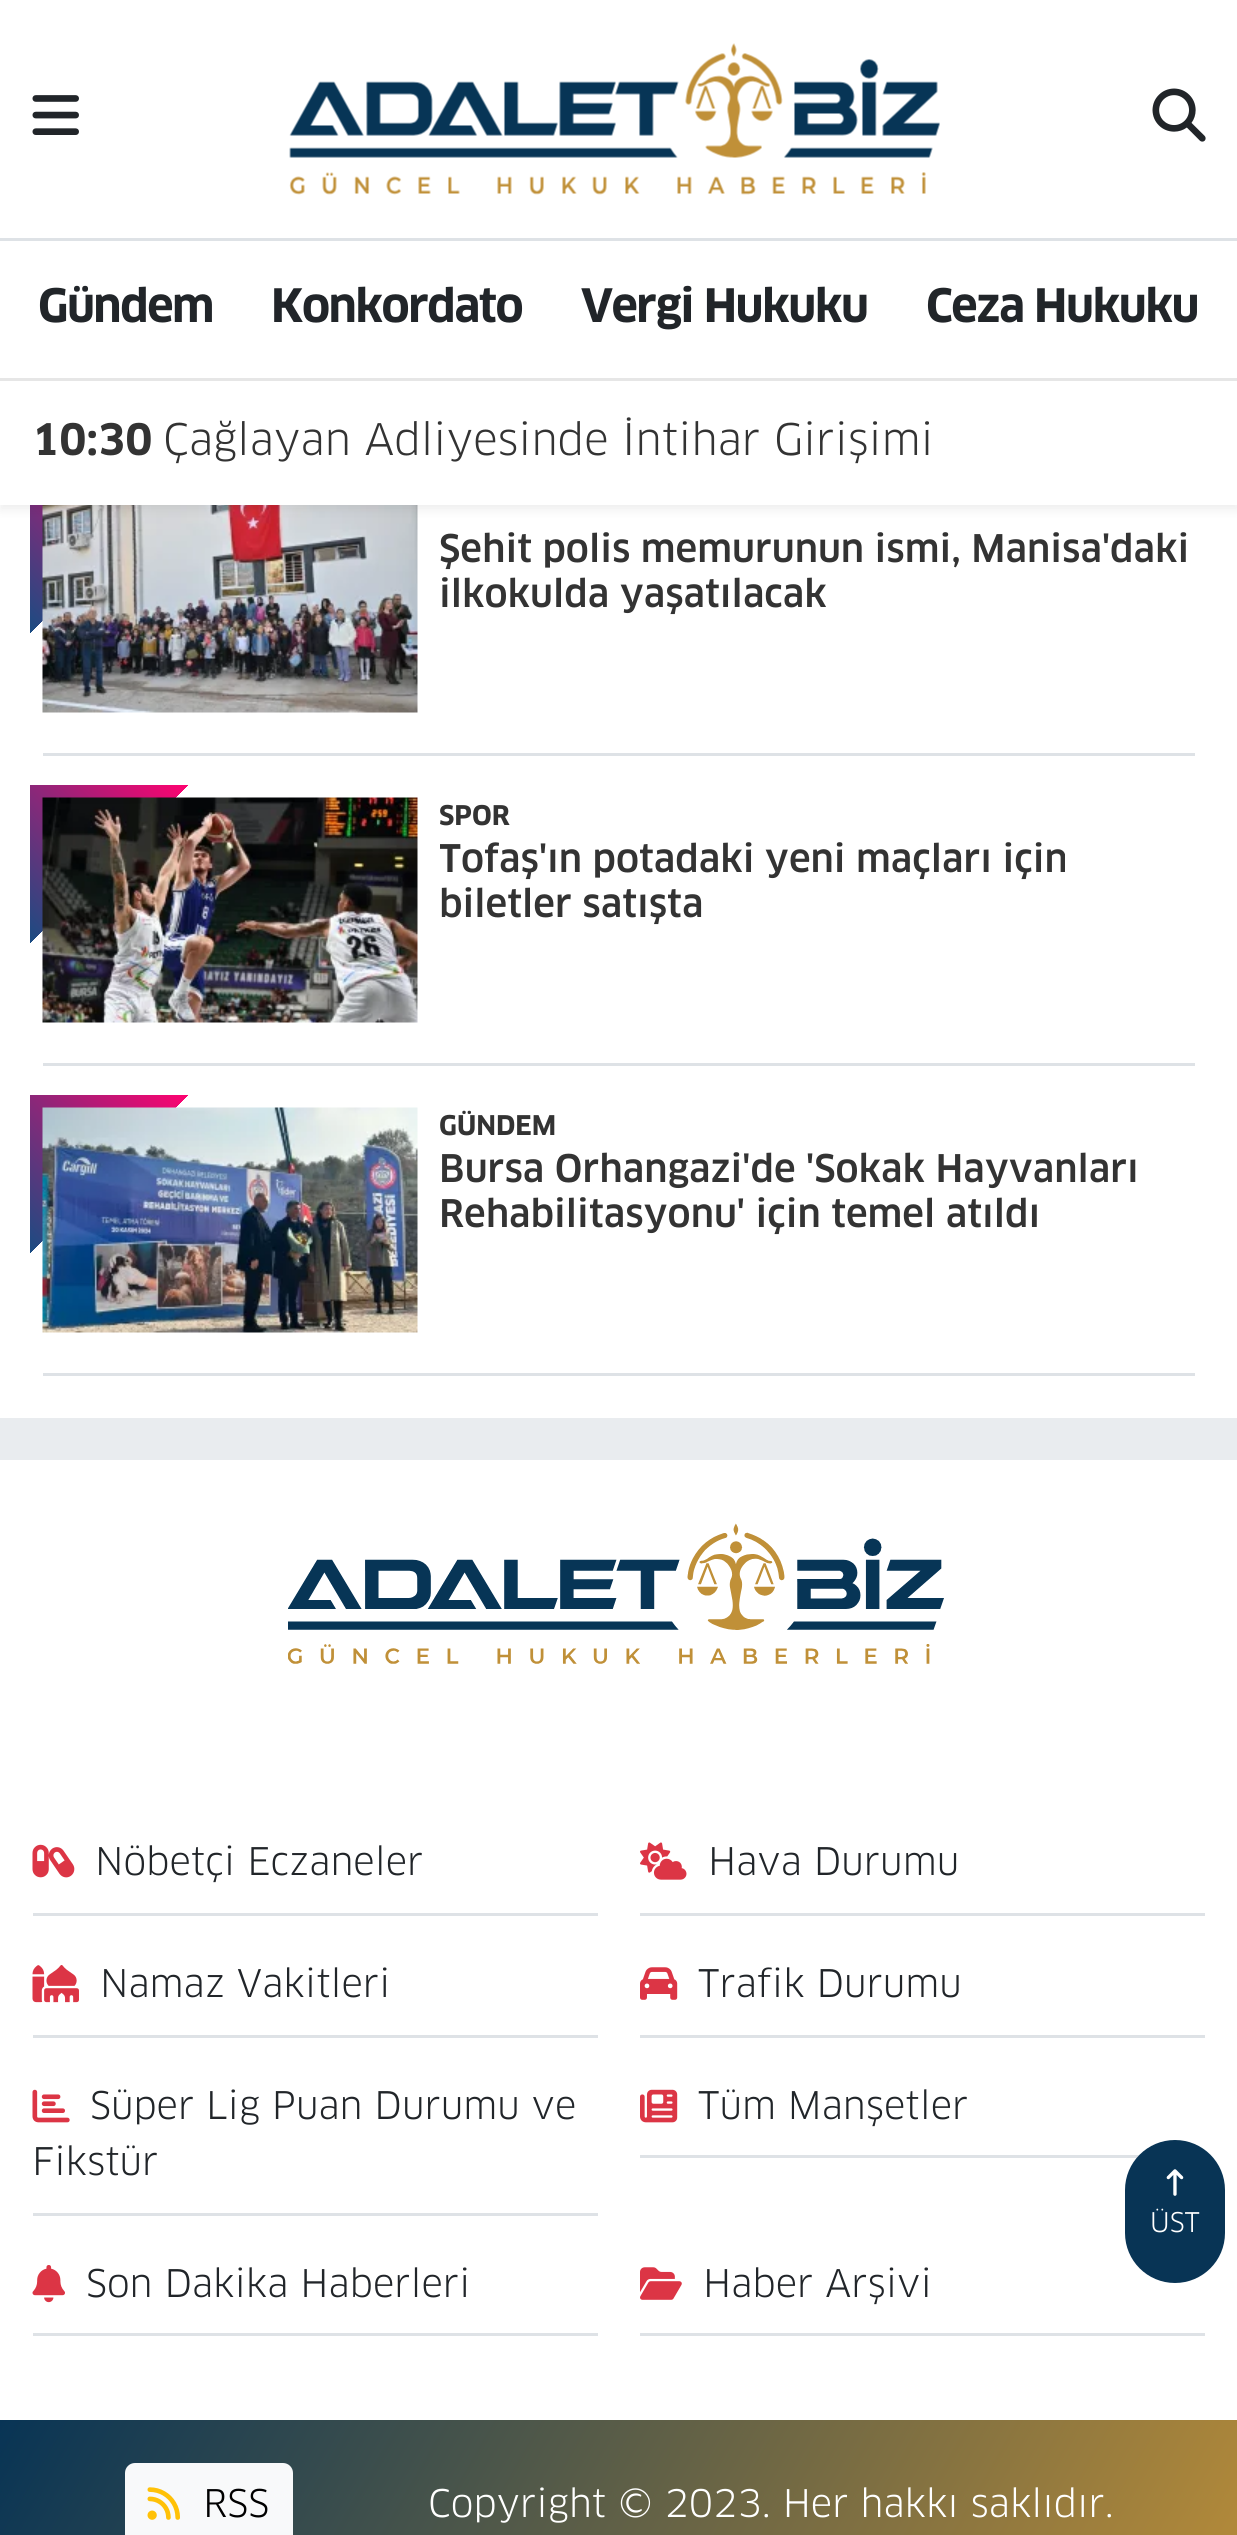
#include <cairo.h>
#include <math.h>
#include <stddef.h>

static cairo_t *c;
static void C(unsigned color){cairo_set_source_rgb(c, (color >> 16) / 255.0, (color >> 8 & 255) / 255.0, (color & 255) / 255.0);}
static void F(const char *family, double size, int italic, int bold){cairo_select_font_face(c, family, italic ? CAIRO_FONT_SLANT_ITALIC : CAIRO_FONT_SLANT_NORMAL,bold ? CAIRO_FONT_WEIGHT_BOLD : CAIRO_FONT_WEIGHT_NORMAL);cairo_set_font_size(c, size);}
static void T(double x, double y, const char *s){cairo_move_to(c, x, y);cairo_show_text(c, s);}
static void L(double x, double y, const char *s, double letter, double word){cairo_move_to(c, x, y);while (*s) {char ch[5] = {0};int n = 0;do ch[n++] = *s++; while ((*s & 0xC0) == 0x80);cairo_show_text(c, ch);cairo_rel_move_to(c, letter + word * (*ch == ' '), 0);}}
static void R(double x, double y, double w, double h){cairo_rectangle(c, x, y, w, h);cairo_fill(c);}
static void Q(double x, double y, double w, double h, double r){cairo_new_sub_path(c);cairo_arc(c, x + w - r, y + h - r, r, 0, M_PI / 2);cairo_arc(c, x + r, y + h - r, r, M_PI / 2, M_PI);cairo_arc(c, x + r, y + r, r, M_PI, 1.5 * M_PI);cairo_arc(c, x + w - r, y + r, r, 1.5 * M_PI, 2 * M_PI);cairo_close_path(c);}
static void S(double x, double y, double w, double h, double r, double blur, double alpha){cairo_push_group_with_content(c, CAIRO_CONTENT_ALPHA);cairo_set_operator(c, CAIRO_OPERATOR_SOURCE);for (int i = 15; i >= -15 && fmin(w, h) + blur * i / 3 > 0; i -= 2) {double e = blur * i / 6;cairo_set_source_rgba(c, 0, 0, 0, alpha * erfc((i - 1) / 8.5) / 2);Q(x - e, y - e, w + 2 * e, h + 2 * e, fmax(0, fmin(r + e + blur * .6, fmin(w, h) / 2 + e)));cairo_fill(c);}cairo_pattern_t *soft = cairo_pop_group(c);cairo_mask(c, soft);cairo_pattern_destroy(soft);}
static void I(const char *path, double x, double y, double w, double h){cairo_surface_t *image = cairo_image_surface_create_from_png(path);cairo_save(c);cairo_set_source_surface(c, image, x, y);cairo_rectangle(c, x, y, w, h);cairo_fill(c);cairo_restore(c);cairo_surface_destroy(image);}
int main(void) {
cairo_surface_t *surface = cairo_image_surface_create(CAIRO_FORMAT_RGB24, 1237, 2535);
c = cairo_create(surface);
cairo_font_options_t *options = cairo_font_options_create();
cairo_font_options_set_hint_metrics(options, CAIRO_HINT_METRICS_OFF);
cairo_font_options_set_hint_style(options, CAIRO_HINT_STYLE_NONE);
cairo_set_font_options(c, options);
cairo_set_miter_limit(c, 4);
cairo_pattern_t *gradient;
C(0xe9ecef);
cairo_paint(c);
C(0xffffff);
R(0,0,1237,238);
C(0xdee2e6);
R(0,238,1237,3);
I("1.png",32,95,47,40);
I("2.png",289,43,651,152);
I("3.png",1152,88,54,54);
C(0xffffff);
R(0,505,1237,913);
gradient = cairo_pattern_create_linear(30,633,188,475);
cairo_pattern_add_color_stop_rgba(gradient,0,0.098,0.298,0.51,1);
cairo_pattern_add_color_stop_rgba(gradient,1,1,0.008,0.439,1);
cairo_set_source(c,gradient);
cairo_pattern_destroy(gradient);
R(30,505,13,128);
gradient = cairo_pattern_create_linear(188,633,30,475);
cairo_pattern_add_color_stop_rgba(gradient,.5,1,1,1,1);
cairo_pattern_add_color_stop_rgba(gradient,.5,1,1,1,0);
cairo_set_source(c,gradient);
cairo_pattern_destroy(gradient);
R(31,621,12,12);
I("4.png",42,505,376,208);
C(0x000000);
S(0,385,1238,125,0,5.5,.07);
C(0xffffff);
R(0,241,1237,137);
C(0xe6e6e6);
R(0,378,1237,3);
F("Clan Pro",45,0,1);
C(0x212529);
L(38,322,"Gündem",-1.5,0);
L(271,322,"Konkordato",-1.5,0);
L(581,322,"Vergi Hukuku",-1.5,0);
L(926,322,"Ceza Hukuku",-1.5,0);
C(0xffffff);
R(0,381,1237,124);
F("Clan Pro",42.5,0,1);
C(0x333333);
T(32,455,"10:30");
F("Clan Pro",42.5,0,0);
T(163,455,"Çağlayan Adliyesinde İntihar Girişimi");
C(0xdee2e6);
R(43,753,1152,3);
F("Clan Pro Medium",37.2,0,0);
C(0x333333);
T(439,562,"Şehit polis memurunun ismi, Manisa'daki");
T(439,607,"ilkokulda yaşatılacak");
C(0xdee2e6);
R(43,1063,1152,3);
gradient = cairo_pattern_create_linear(30,943,188,785);
cairo_pattern_add_color_stop_rgba(gradient,0,0.098,0.298,0.51,1);
cairo_pattern_add_color_stop_rgba(gradient,1,1,0.008,0.439,1);
cairo_set_source(c,gradient);
cairo_pattern_destroy(gradient);
R(30,785,158,158);
gradient = cairo_pattern_create_linear(188,943,30,785);
cairo_pattern_add_color_stop_rgba(gradient,.5,1,1,1,1);
cairo_pattern_add_color_stop_rgba(gradient,.5,1,1,1,0);
cairo_set_source(c,gradient);
cairo_pattern_destroy(gradient);
R(31,786,157,157);
I("5.png",42,797,376,226);
F("Clan Pro",26.5,0,1);
C(0x333333);
T(439,825,"SPOR");
cairo_save(c);
cairo_rectangle(c,440,838,755,90);
cairo_clip(c);
F("Clan Pro Medium",37.2,0,0);
T(439,872,"Tofaş'ın potadaki yeni maçları için");
cairo_restore(c);
F("Clan Pro Medium",37.2,0,0);
T(439,917,"biletler satışta");
C(0xdee2e6);
R(43,1373,1152,3);
gradient = cairo_pattern_create_linear(30,1253,188,1095);
cairo_pattern_add_color_stop_rgba(gradient,0,0.098,0.298,0.51,1);
cairo_pattern_add_color_stop_rgba(gradient,1,1,0.008,0.439,1);
cairo_set_source(c,gradient);
cairo_pattern_destroy(gradient);
R(30,1095,158,158);
gradient = cairo_pattern_create_linear(188,1253,30,1095);
cairo_pattern_add_color_stop_rgba(gradient,.5,1,1,1,1);
cairo_pattern_add_color_stop_rgba(gradient,.5,1,1,1,0);
cairo_set_source(c,gradient);
cairo_pattern_destroy(gradient);
R(31,1096,157,157);
I("6.png",42,1107,376,226);
F("Clan Pro",26.5,0,1);
C(0x333333);
T(439,1135,"GÜNDEM");
F("Clan Pro Medium",37.2,0,0);
T(439,1182,"Bursa Orhangazi'de 'Sokak Hayvanları");
T(439,1227,"Rehabilitasyonu' için temel atıldı");
C(0xffffff);
R(0,1460,1237,960);
I("7.png",288,1523,656,141);
C(0xdee2e6);
R(33,1913,565,3);
I("8.png",32,1844,43,34);
F("Clan Pro",37.2,0,0);
C(0x212529);
T(95,1875,"Nöbetçi Eczaneler");
C(0xdee2e6);
R(640,1913,565,3);
I("9.png",640,1842,47,38);
C(0x212529);
T(708,1875,"Hava Durumu");
C(0xdee2e6);
R(33,2035,565,3);
I("10.png",32,1965,47,38);
C(0x212529);
T(100,1997,"Namaz Vakitleri");
C(0xdee2e6);
R(640,2035,565,3);
I("11.png",640,1967,38,33);
C(0x212529);
T(698,1997,"Trafik Durumu");
C(0xdee2e6);
R(33,2213,565,3);
I("12.png",32,2089,38,34);
C(0x212529);
T(90,2119,"Süper Lig Puan Durumu ve");
T(32,2175,"Fikstür");
C(0xdee2e6);
R(640,2155,500,3);
I("13.png",640,2089,38,34);
C(0x212529);
T(698,2119,"Tüm Manşetler");
C(0xdee2e6);
R(33,2333,565,3);
I("14.png",32,2265,33,38);
C(0x212529);
T(86,2297,"Son Dakika Haberleri");
C(0xdee2e6);
R(640,2333,565,3);
I("15.png",640,2267,42,33);
C(0x212529);
T(703,2297,"Haber Arşivi");
gradient = cairo_pattern_create_linear(87,2269,1150,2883);
cairo_pattern_add_color_stop_rgba(gradient,0,0.031,0.204,0.333,1);
cairo_pattern_add_color_stop_rgba(gradient,1,0.753,0.565,0.216,1);
cairo_set_source(c,gradient);
cairo_pattern_destroy(gradient);
R(0,2420,1237,115);
C(0xf8f9fa);
Q(126.5,2464.5,165,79,8.5);
cairo_fill_preserve(c);
cairo_set_line_width(c,3);
cairo_stroke(c);
I("16.png",147,2487,33,33);
C(0x000000);
T(203,2517,"RSS");
C(0xffffff);
T(428,2517,"Copyright © 2023. Her hakkı saklıdır.");
C(0x083455);
Q(1125,2140,100,143,50);
cairo_fill(c);
I("17.png",1166,2169,18,27);
F("Clan Pro",26.5,0,0);
C(0xffffff);
T(1150,2232,"ÜST");
cairo_surface_write_to_png(surface, "o.png");
cairo_font_options_destroy(options);
cairo_destroy(c);
cairo_surface_destroy(surface);
return 0;
}
